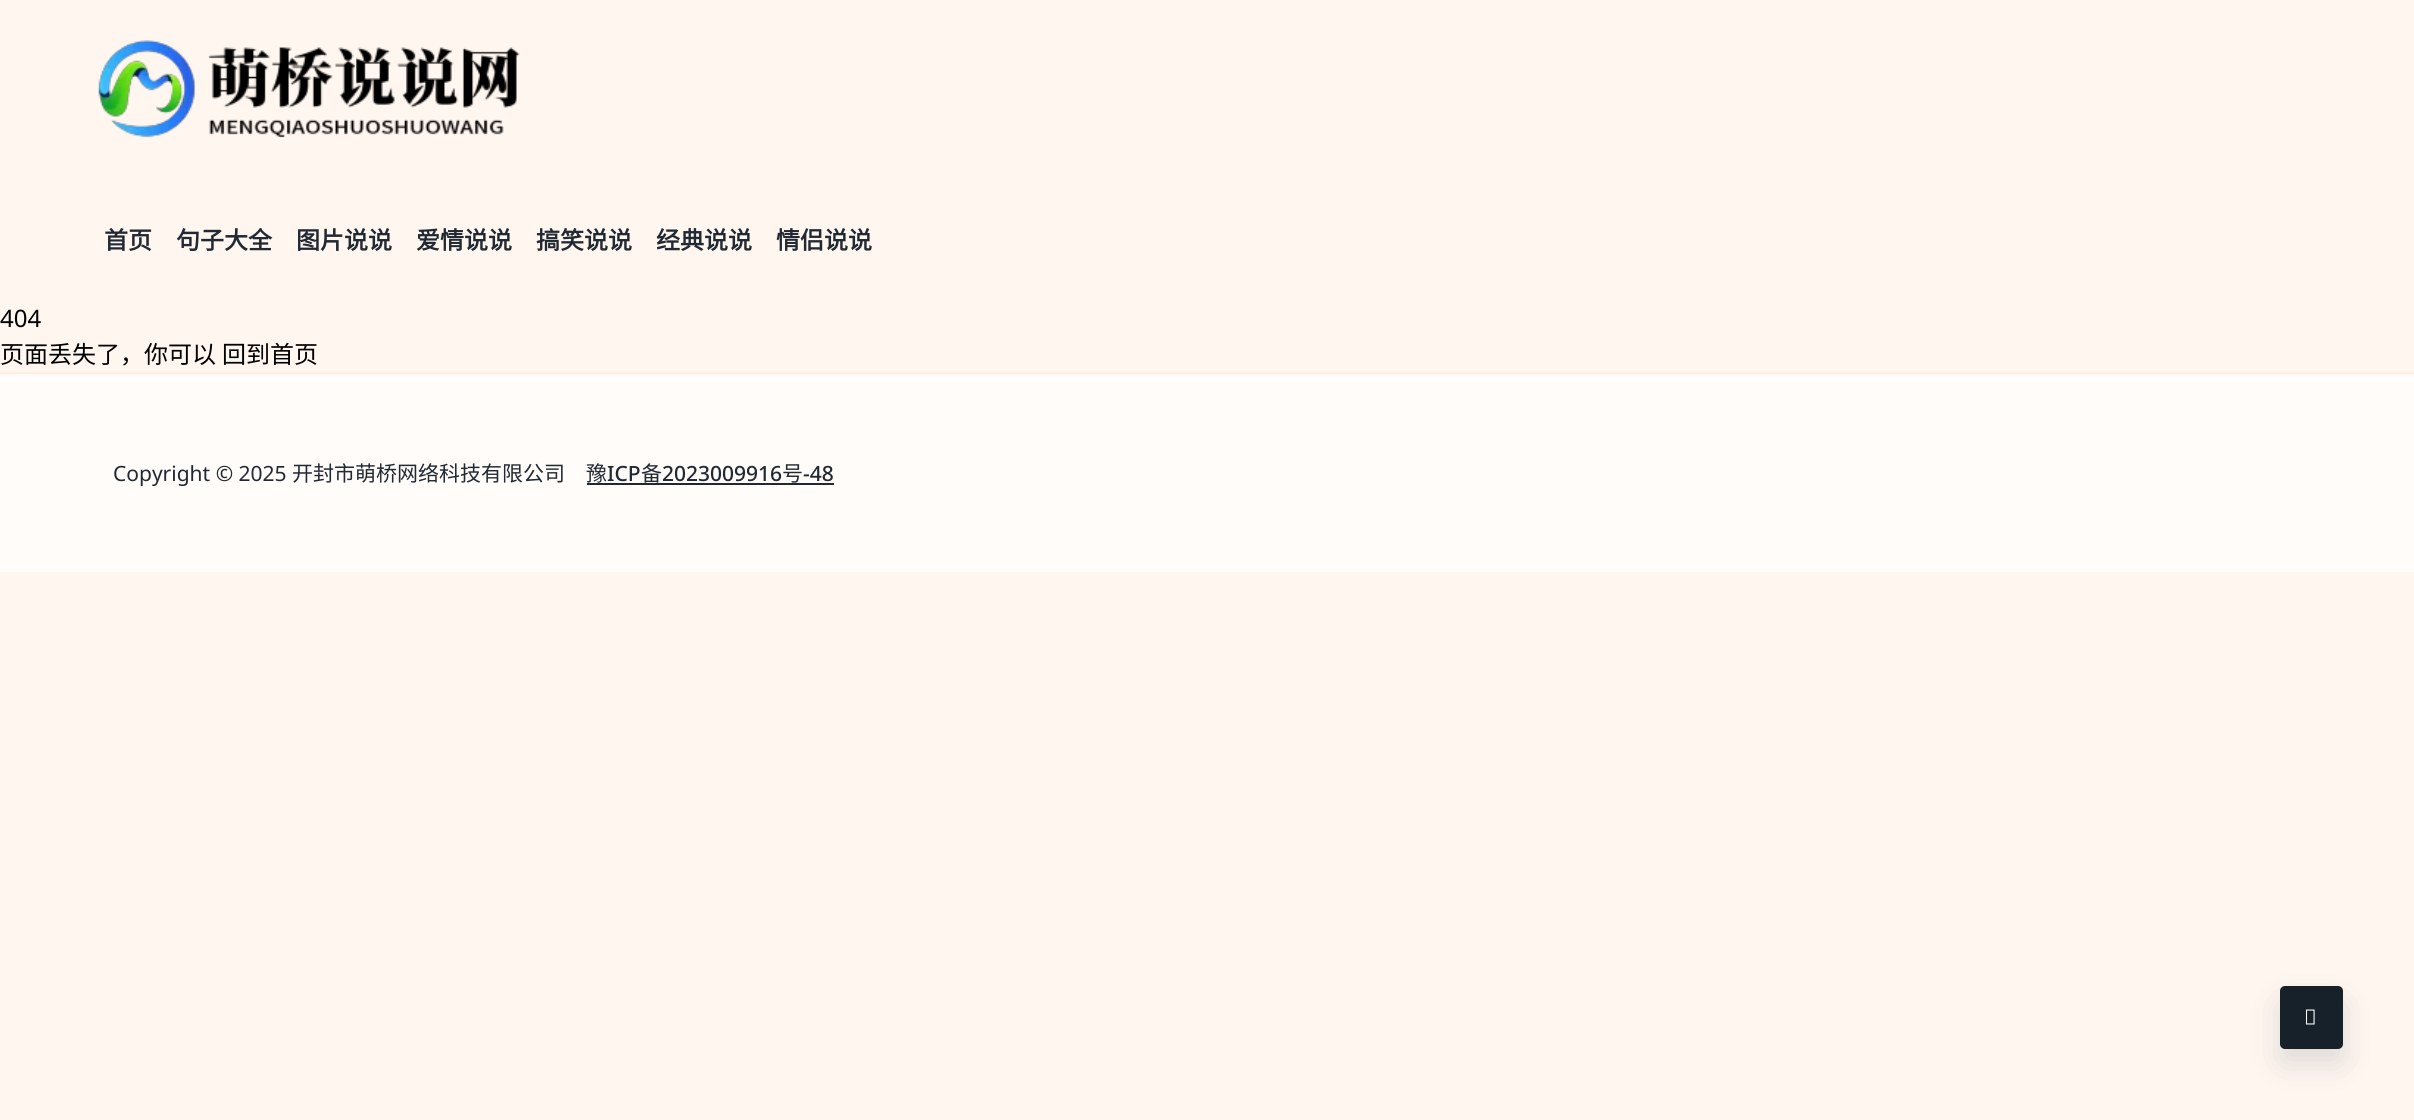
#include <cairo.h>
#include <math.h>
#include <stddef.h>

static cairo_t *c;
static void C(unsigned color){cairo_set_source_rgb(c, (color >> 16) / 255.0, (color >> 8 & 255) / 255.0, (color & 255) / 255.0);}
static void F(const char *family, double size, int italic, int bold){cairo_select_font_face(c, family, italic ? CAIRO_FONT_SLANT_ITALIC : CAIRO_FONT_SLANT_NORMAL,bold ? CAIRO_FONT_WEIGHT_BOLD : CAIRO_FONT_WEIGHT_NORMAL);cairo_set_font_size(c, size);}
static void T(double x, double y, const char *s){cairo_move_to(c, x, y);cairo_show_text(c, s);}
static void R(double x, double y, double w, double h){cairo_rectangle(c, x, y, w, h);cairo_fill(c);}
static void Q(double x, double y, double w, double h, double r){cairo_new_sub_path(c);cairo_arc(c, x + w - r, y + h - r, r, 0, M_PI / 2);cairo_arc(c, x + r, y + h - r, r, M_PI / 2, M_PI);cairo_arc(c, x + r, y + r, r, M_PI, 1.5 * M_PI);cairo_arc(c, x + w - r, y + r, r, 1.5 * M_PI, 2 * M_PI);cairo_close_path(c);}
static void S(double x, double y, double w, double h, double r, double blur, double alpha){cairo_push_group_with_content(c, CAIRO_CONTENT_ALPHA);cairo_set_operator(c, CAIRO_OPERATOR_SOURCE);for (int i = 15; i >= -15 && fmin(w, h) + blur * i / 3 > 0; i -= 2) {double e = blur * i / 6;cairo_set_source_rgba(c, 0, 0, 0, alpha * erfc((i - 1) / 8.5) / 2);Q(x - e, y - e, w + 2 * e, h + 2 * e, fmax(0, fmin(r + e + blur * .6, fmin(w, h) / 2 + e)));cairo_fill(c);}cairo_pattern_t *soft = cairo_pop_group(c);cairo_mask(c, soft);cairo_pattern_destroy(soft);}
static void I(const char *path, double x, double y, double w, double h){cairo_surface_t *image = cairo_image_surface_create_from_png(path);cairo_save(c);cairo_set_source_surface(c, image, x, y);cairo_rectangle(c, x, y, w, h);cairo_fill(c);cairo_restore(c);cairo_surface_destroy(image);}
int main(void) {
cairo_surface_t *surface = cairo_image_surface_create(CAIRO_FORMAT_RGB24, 2414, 1120);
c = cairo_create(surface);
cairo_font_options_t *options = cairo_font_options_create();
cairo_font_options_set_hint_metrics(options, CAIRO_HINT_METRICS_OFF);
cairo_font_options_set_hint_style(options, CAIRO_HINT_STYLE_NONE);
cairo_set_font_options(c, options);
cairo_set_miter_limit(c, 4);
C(0xfff6ef);
cairo_paint(c);
I("1.png",98,40,422,98);
F("Noto Sans CJK SC",24,0,1);
C(0x212a33);
T(104,249,"首页");
T(176,249,"句子大全");
T(296,249,"图片说说");
T(416,249,"爱情说说");
T(536,249,"搞笑说说");
T(656,249,"经典说说");
T(776,249,"情侣说说");
F("Noto Sans",24,0,0);
C(0x000000);
T(0,327,"404");
F("Noto Sans CJK SC",24,0,0);
T(0,363,"页面丢失了，你可以");
T(222,363,"回到首页");
C(0xfffcfa);
R(0,374,2414,198);
C(0xfdece0);
R(0,372,2414,2);
F("Noto Sans",21,0,0);
C(0x212a33);
T(113,481,"Copyright © 2025");
F("Noto Sans CJK SC",21,0,0);
T(292,481,"开封市萌桥网络科技有限公司");
T(586,481,"豫");
F("Noto Sans Medium",21,0,0);
T(607,481,"ICP");
R(587,483,247,2);
F("Noto Sans CJK SC",21,0,0);
T(641,481,"备");
F("Noto Sans Medium",21,0,0);
T(662,481,"2023009916");
F("Noto Sans CJK SC",21,0,0);
T(782,481,"号");
F("Noto Sans Medium",21,0,0);
T(803,481,"-48");
C(0x2c3e50);
S(2280,1001,63,63,5,15,.15);
C(0x17212a);
Q(2280,986,63,63,5);
cairo_fill(c);
I("2.png",2305,1009,10,16);
cairo_surface_write_to_png(surface, "o.png");
cairo_font_options_destroy(options);
cairo_destroy(c);
cairo_surface_destroy(surface);
return 0;
}
